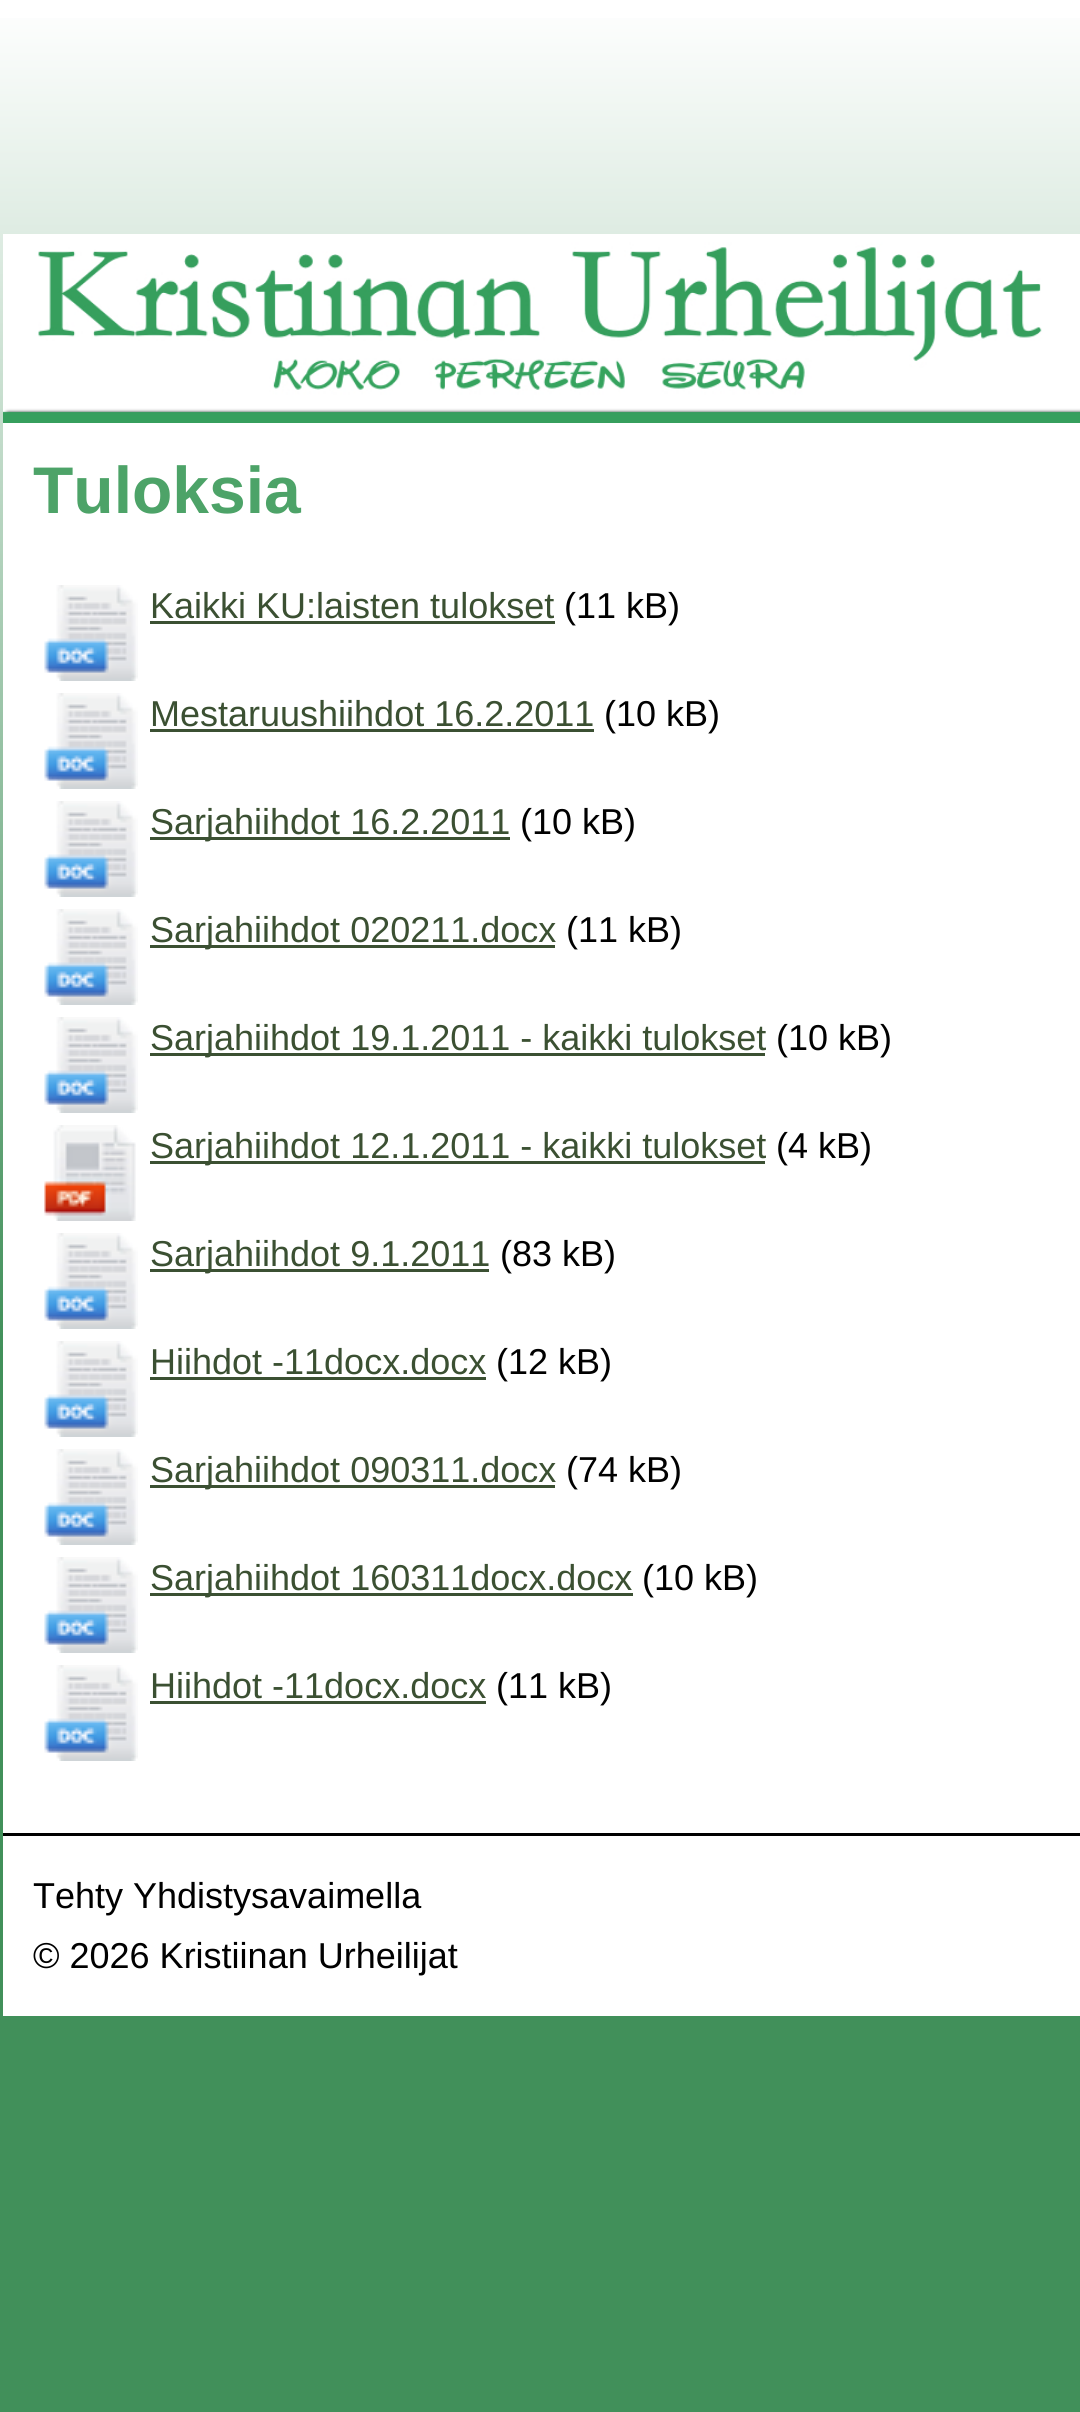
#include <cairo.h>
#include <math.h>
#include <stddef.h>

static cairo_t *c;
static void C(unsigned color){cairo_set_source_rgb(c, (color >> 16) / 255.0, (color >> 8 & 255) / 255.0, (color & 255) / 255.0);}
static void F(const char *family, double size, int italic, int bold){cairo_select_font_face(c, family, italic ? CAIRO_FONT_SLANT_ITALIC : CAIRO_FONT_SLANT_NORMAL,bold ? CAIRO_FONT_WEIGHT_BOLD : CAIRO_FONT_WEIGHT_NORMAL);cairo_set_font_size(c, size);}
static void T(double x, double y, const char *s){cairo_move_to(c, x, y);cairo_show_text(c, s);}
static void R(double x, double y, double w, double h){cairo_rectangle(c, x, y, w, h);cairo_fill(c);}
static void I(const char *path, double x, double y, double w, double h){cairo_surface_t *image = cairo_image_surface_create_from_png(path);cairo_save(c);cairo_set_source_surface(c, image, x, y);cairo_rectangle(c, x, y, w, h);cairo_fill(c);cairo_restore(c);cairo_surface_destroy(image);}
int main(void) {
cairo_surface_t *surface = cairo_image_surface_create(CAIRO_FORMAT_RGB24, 1080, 2412);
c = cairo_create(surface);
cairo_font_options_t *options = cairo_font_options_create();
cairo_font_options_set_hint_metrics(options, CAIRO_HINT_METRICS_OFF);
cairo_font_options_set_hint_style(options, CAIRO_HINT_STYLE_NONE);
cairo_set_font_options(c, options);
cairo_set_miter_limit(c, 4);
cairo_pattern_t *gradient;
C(0xffffff);
cairo_paint(c);
gradient = cairo_pattern_create_linear(540,0,540,2412);
cairo_pattern_add_color_stop_rgba(gradient,0,1,1,1,1);
cairo_pattern_add_color_stop_rgba(gradient,.56,0.255,0.565,0.353,1);
cairo_pattern_add_color_stop_rgba(gradient,1,0.255,0.565,0.353,1);
cairo_set_source(c,gradient);
cairo_pattern_destroy(gradient);
R(0,18,1080,2394);
I("1.png",3,234,1077,189);
C(0xffffff);
R(3,423,1077,1410);
F("Liberation Sans",66,0,1);
C(0x4da368);
T(33,513,"Tuloksia");
I("2.png",44,585,94,96);
F("Liberation Sans",36,0,0);
C(0x3b5032);
T(150,618,"Kaikki KU:laisten tulokset");
R(150,621,405,3);
C(0x000000);
T(564,618,"(11 kB)");
I("2.png",44,693,94,96);
C(0x3b5032);
T(150,726,"Mestaruushiihdot 16.2.2011");
R(150,729,444,3);
C(0x000000);
T(604,726,"(10 kB)");
I("2.png",44,801,94,96);
C(0x3b5032);
R(150,837,360,3);
T(150,834,"Sarjahiihdot 16.2.2011");
C(0x000000);
T(520,834,"(10 kB)");
I("2.png",44,909,94,96);
C(0x3b5032);
R(150,945,405,3);
T(150,942,"Sarjahiihdot 020211.docx");
C(0x000000);
T(566,942,"(11 kB)");
I("2.png",44,1017,94,96);
C(0x3b5032);
R(150,1053,615,3);
T(150,1050,"Sarjahiihdot 19.1.2011 - kaikki tulokset");
C(0x000000);
T(776,1050,"(10 kB)");
I("3.png",44,1125,92,96);
C(0x3b5032);
R(150,1161,615,3);
T(150,1158,"Sarjahiihdot 12.1.2011 - kaikki tulokset");
C(0x000000);
T(776,1158,"(4 kB)");
I("2.png",44,1233,94,96);
C(0x3b5032);
R(150,1269,339,3);
T(150,1266,"Sarjahiihdot 9.1.2011");
C(0x000000);
T(500,1266,"(83 kB)");
I("2.png",44,1341,94,96);
C(0x3b5032);
T(150,1374,"Hiihdot -11docx.docx");
R(150,1377,336,3);
C(0x000000);
T(496,1374,"(12 kB)");
I("2.png",44,1449,94,96);
C(0x3b5032);
R(150,1485,405,3);
T(150,1482,"Sarjahiihdot 090311.docx");
C(0x000000);
T(566,1482,"(74 kB)");
I("2.png",44,1557,94,96);
C(0x3b5032);
R(150,1593,483,3);
T(150,1590,"Sarjahiihdot 160311docx.docx");
C(0x000000);
T(642,1590,"(10 kB)");
I("2.png",44,1665,94,96);
C(0x3b5032);
T(150,1698,"Hiihdot -11docx.docx");
R(150,1701,336,3);
C(0x000000);
T(496,1698,"(11 kB)");
C(0xffffff);
R(3,1836,1077,180);
C(0x000000);
R(3,1833,1077,3);
T(33,1908,"Tehty Yhdistysavaimella");
T(33,1968,"© 2026 Kristiinan Urheilijat");
cairo_surface_write_to_png(surface, "o.png");
cairo_font_options_destroy(options);
cairo_destroy(c);
cairo_surface_destroy(surface);
return 0;
}
